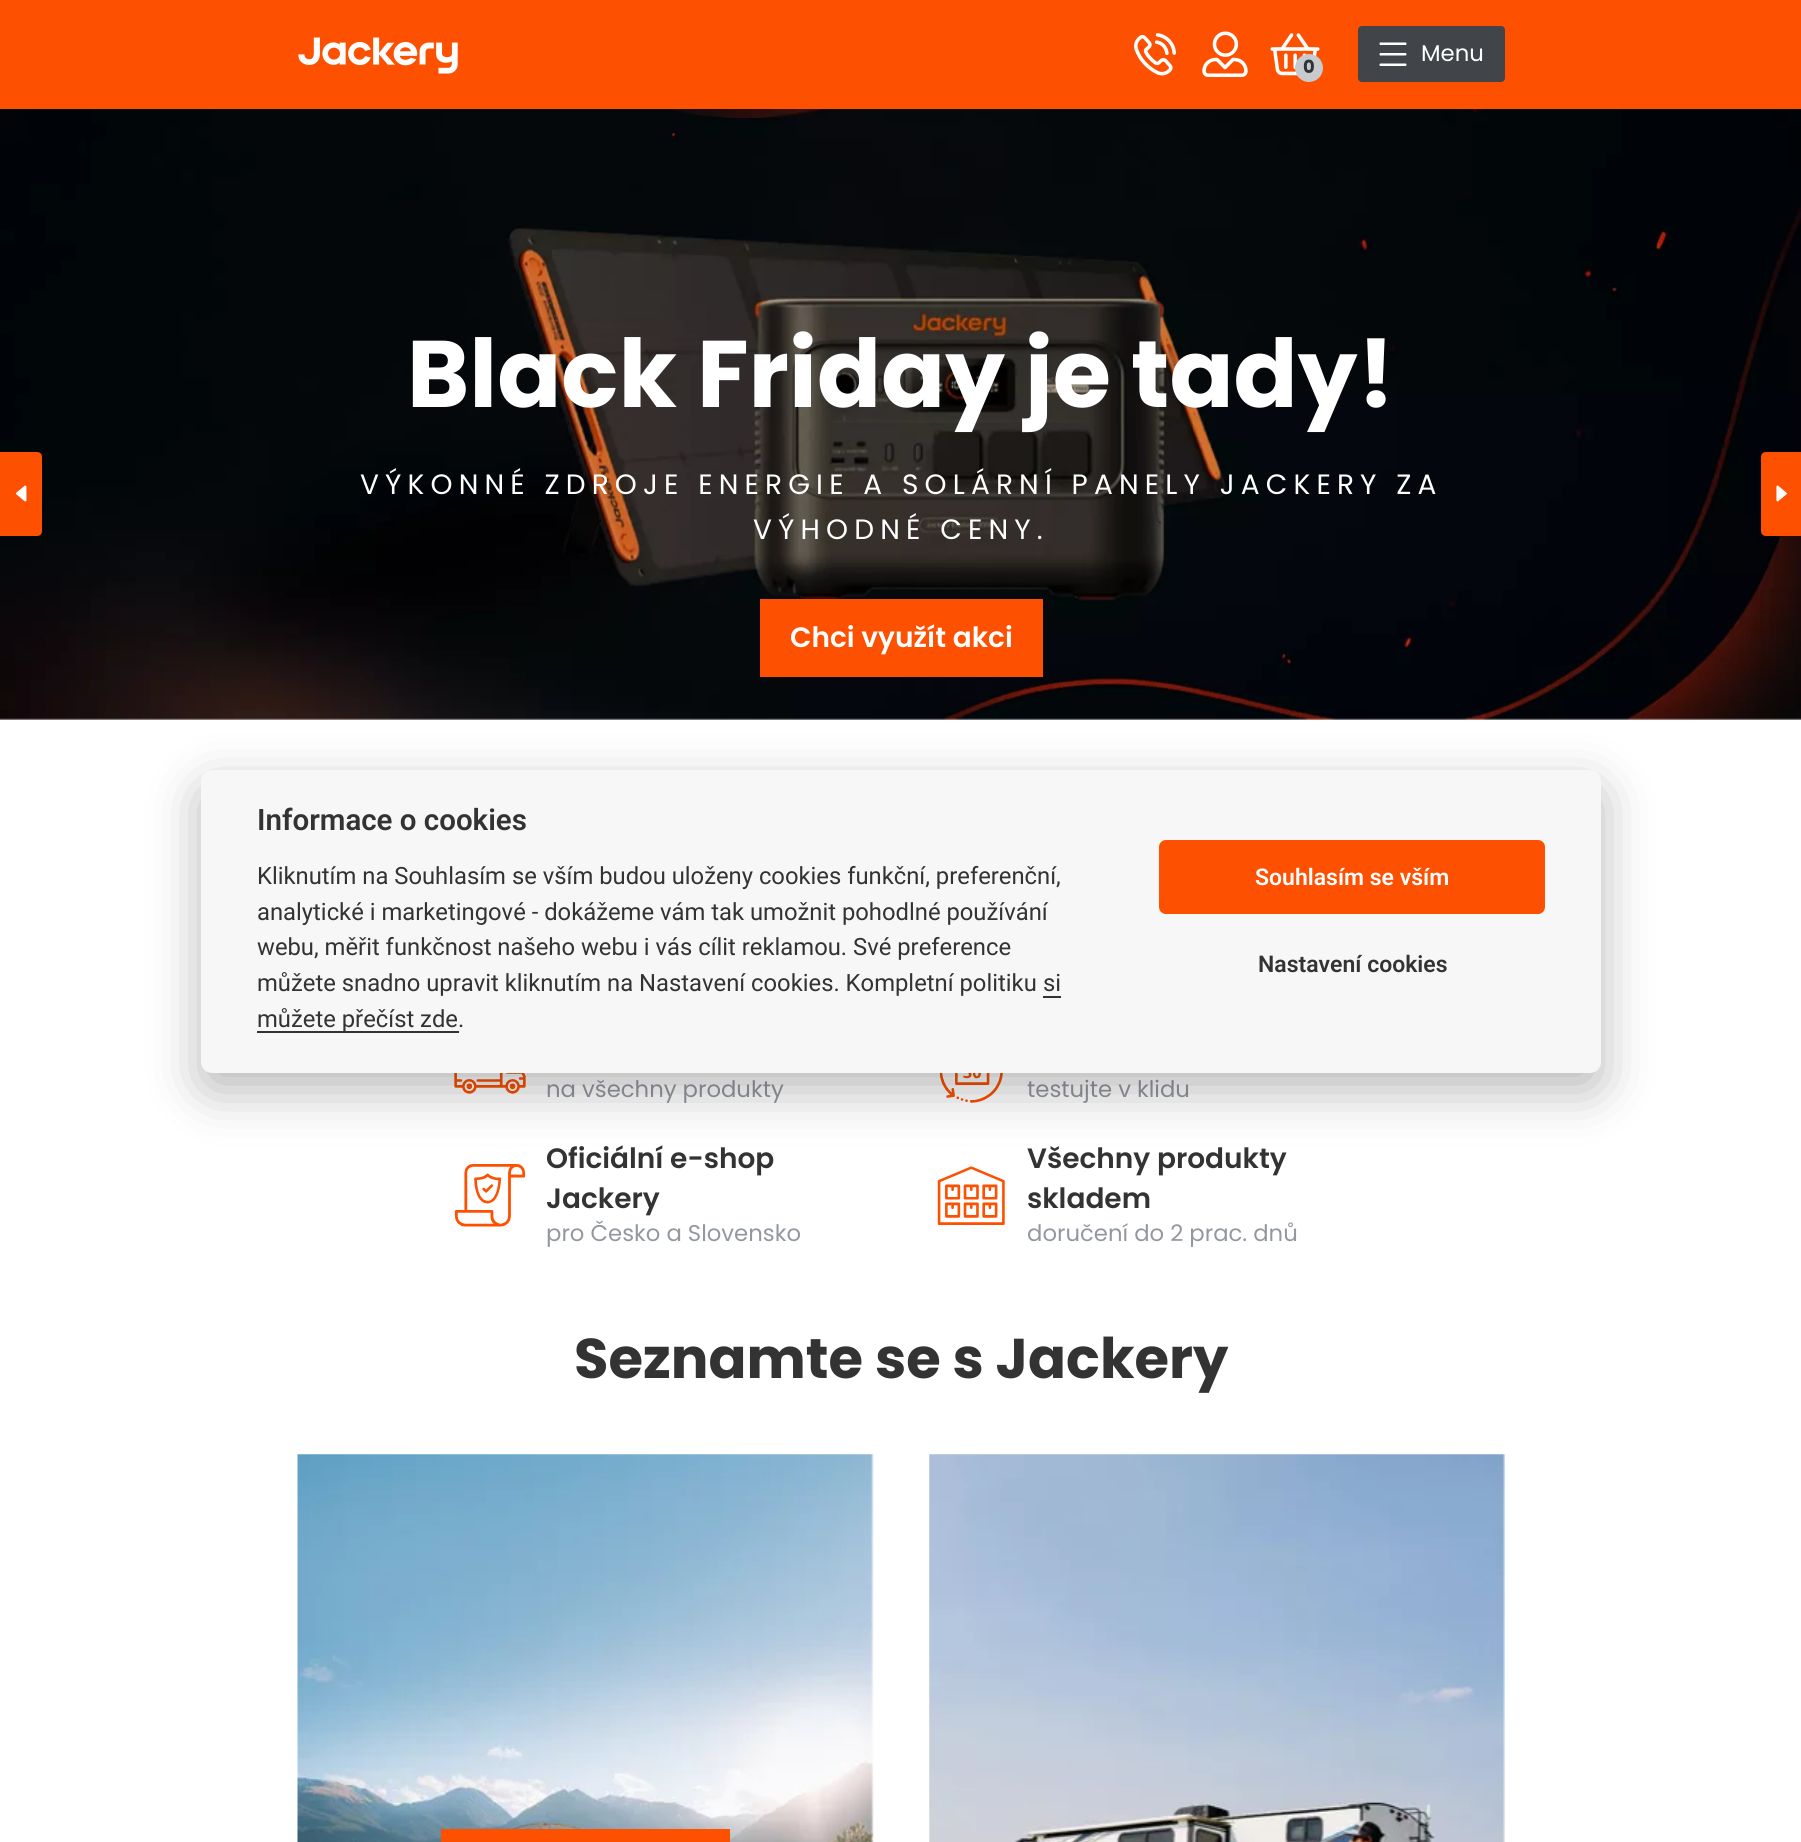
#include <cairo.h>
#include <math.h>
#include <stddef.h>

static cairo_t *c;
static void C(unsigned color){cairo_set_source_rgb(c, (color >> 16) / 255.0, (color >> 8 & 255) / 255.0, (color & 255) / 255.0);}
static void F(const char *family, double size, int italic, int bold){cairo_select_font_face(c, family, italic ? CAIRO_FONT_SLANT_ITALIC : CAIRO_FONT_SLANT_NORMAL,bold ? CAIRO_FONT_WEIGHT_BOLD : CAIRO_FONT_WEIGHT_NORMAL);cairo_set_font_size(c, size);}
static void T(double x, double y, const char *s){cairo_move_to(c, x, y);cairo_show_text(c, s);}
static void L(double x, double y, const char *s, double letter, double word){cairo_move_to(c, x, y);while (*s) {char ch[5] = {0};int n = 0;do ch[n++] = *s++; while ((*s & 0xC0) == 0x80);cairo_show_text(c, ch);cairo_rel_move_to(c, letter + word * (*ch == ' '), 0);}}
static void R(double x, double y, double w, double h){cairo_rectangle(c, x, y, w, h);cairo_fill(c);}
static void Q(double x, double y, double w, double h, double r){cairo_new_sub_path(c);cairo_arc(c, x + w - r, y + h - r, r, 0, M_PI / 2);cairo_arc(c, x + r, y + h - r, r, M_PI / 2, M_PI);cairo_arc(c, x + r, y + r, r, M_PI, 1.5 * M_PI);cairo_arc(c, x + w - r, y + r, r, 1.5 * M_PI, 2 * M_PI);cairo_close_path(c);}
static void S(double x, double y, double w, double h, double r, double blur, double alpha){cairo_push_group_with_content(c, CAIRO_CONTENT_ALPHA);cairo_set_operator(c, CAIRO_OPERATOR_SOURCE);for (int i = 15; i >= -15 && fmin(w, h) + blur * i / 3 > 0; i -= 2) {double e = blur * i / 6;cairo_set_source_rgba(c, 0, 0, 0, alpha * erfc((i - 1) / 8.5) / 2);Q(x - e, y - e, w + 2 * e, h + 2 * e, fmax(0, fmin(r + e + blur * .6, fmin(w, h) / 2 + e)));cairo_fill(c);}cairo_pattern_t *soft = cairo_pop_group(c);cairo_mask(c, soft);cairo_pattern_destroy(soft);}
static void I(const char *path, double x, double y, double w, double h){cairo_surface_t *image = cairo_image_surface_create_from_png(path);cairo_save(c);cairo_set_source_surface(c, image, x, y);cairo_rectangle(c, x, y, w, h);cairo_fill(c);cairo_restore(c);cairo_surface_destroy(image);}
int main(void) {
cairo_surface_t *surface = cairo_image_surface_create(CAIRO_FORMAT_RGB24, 1801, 1842);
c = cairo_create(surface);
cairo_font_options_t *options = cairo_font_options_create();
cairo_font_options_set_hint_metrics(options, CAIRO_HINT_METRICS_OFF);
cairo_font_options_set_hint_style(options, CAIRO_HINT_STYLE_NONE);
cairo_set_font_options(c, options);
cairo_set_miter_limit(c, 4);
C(0xffffff);
cairo_paint(c);
C(0xfd5000);
R(0,0,1801,109);
I("1.png",298,37,160,37);
I("2.png",1134,33,42,43);
I("3.png",1202,31,46,46);
C(0x414448);
Q(1358,26,147,56,4);
cairo_fill(c);
I("4.png",1379,42,28,24);
F("Poppins",22.75,0,0);
C(0xffffff);
T(1421,61,"Menu");
I("5.png",1270,33,50,43);
C(0xc7cbcf);
cairo_arc(c,1309,68,14,0,2 * M_PI);
cairo_fill(c);
F("Poppins",18,0,1);
C(0x333333);
T(1303,73,"0");
I("6.png",0,109,1801,611);
F("Poppins",94.5,0,1);
C(0xffffff);
T(407,407,"Black Friday je tady!");
F("Poppins",28,0,0);
L(360,494,"VÝKONNÉ ZDROJE ENERGIE A SOLÁRNÍ PANELY JACKERY ZA",6.15,0);
L(753,539,"VÝHODNÉ CENY.",6.15,0);
C(0xfd5000);
R(760,599,283,78);
F("Poppins SemiBold",28,0,0);
C(0xffffff);
T(790,647,"Chci využít akci");
C(0xfd5000);
cairo_new_path(c);
cairo_move_to(c,0,452);
cairo_line_to(c,37,452);
cairo_curve_to(c,40,452,42,454,42,457);
cairo_line_to(c,42,531);
cairo_curve_to(c,42,534,40,536,37,536);
cairo_line_to(c,0,536);
cairo_close_path(c);
cairo_fill(c);
I("7.png",16,485,11,17);
cairo_new_path(c);
cairo_move_to(c,1766,452);
cairo_line_to(c,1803,452);
cairo_line_to(c,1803,536);
cairo_line_to(c,1766,536);
cairo_curve_to(c,1763,536,1761,534,1761,531);
cairo_line_to(c,1761,457);
cairo_curve_to(c,1761,454,1763,452,1766,452);
cairo_close_path(c);
cairo_fill(c);
I("8.png",1776,485,11,17);
I("9.png",454,1073,72,21);
F("Poppins",22.75,0,0);
C(0x93989f);
T(546,1097,"na všechny produkty");
I("10.png",939,1073,64,30);
T(1027,1097,"testujte v klidu");
I("11.png",454,1164,72,63);
F("Poppins SemiBold",28,0,0);
C(0x333333);
T(546,1168,"Oficiální e-shop");
T(546,1208,"Jackery");
F("Poppins",22.75,0,0);
C(0x93989f);
T(546,1241,"pro Česko a Slovensko");
I("12.png",937,1166,68,59);
F("Poppins SemiBold",28,0,0);
C(0x333333);
T(1027,1168,"Všechny produkty");
T(1027,1208,"skladem");
F("Poppins",22.75,0,0);
C(0x93989f);
T(1027,1241,"doručení do 2 prac. dnů");
F("Poppins",56,0,1);
C(0x333333);
T(574,1378,"Seznamte se s Jackery");
I("13.png",297,1454,577,388);
C(0x000000);
S(441,1829,289,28,0,5,.06);
C(0xfd5000);
R(441,1829,289,13);
I("14.png",929,1454,576,388);
C(0x020203);
S(201,788,1400,302,11,26,.28);
C(0xf7f7f7);
Q(201,770,1400,303,11);
cairo_fill(c);
F("Roboto SemiBold",29.5,0,0);
C(0x333333);
T(257,830,"Informace o cookies");
F("Roboto",23.8,0,0);
T(257,884,"Kliknutím na Souhlasím se vším budou uloženy cookies funkční, preferenční,");
T(257,920,"analytické i marketingové - dokážeme vám tak umožnit pohodlné používání");
T(257,955,"webu, měřit funkčnost našeho webu i vás cílit reklamou. Své preference");
T(257,991,"můžete snadno upravit kliknutím na Nastavení cookies. Kompletní politiku");
T(1043,991,"si");
R(1043,996,18,2);
R(257,1031,202,2);
T(257,1027,"můžete přečíst zde.");
C(0xfd5000);
Q(1159,840,386,74,7);
cairo_fill(c);
F("Roboto SemiBold",23,0,0);
C(0xffffff);
T(1255,885,"Souhlasím se vším");
C(0x333333);
T(1258,972,"Nastavení cookies");
cairo_surface_write_to_png(surface, "o.png");
cairo_font_options_destroy(options);
cairo_destroy(c);
cairo_surface_destroy(surface);
return 0;
}
